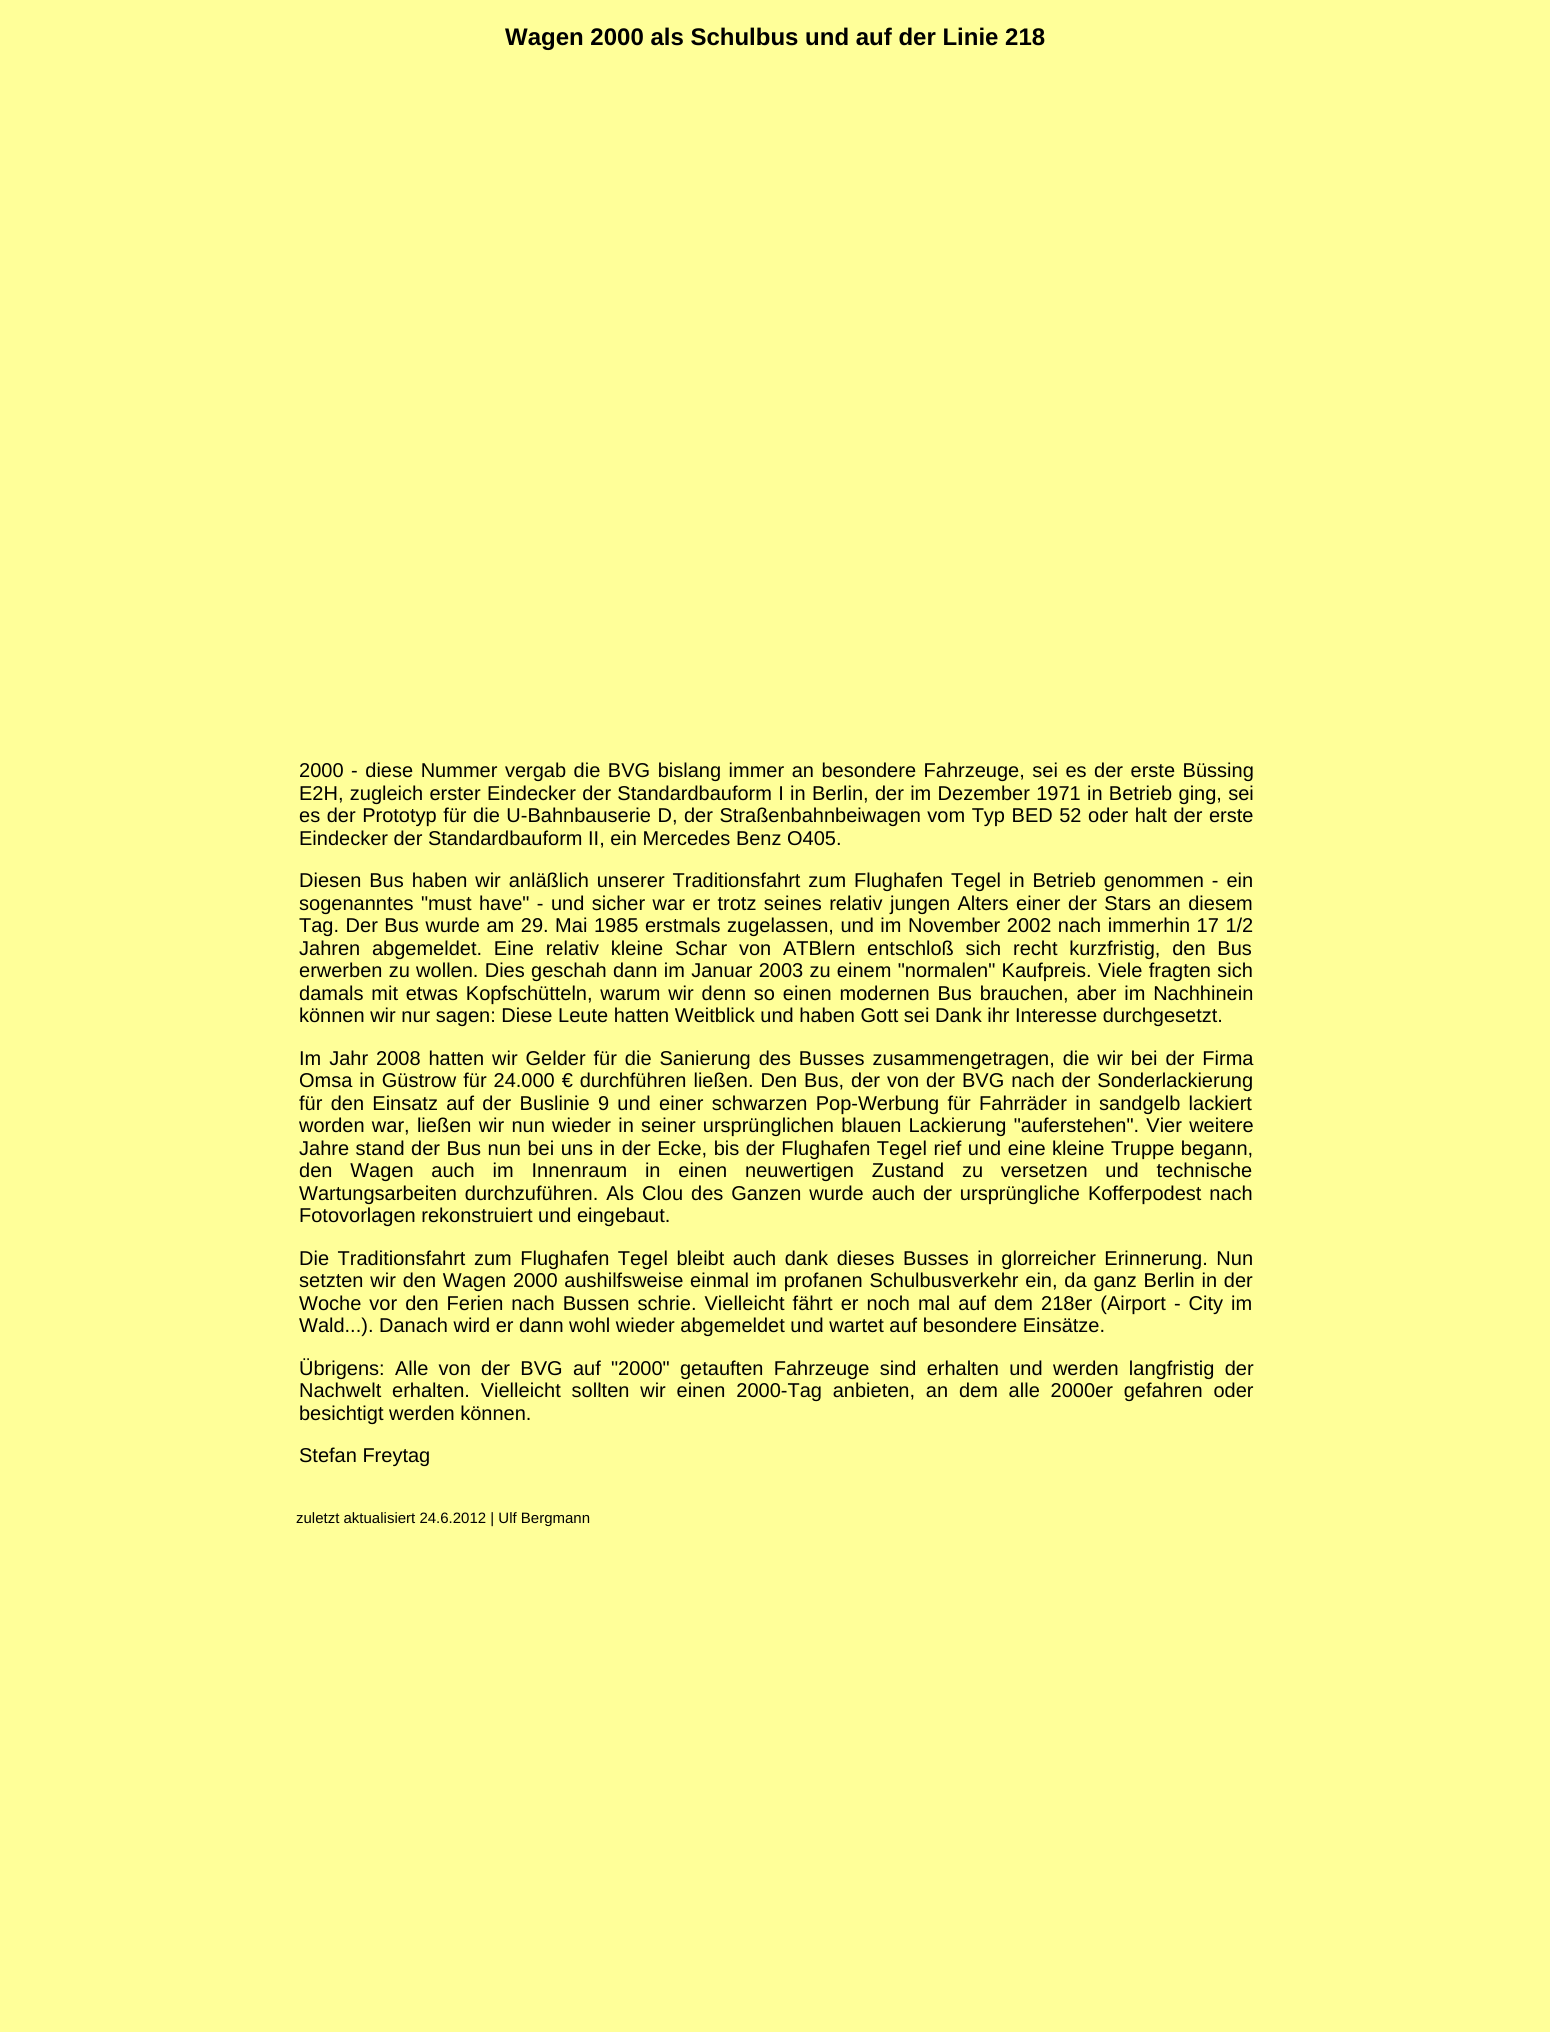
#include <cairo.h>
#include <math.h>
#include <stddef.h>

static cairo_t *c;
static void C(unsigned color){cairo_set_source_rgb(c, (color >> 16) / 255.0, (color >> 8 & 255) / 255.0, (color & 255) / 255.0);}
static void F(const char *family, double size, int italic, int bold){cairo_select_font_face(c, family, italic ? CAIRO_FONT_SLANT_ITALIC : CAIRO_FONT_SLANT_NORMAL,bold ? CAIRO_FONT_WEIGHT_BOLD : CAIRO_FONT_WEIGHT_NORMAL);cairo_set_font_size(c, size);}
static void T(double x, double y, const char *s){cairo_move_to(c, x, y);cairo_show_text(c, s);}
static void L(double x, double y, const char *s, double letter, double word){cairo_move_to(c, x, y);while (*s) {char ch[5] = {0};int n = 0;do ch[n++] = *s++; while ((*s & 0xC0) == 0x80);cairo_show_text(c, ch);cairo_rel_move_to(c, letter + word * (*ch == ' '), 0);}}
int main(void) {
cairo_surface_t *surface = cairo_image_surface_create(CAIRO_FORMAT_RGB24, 1550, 2032);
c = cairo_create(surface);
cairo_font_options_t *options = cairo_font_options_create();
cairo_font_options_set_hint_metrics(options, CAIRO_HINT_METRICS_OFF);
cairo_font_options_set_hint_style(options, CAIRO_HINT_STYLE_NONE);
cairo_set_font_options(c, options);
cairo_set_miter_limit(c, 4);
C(0xffff99);
cairo_paint(c);
F("Liberation Sans",24,0,1);
C(0x000000);
T(505,45,"Wagen 2000 als Schulbus und auf der Linie 218");
F("Liberation Sans",20,0,0);
L(299,777,"2000 - diese Nummer vergab die BVG bislang immer an besondere Fahrzeuge, sei es der erste Büssing",0,2);
L(299,800,"E2H, zugleich erster Eindecker der Standardbauform I in Berlin, der im Dezember 1971 in Betrieb ging, sei",0,.75);
L(299,822,"es der Prototyp für die U-Bahnbauserie D, der Straßenbahnbeiwagen vom Typ BED 52 oder halt der erste",0,1);
T(299,845,"Eindecker der Standardbauform II, ein Mercedes Benz O405.");
L(299,887,"Diesen Bus haben wir anläßlich unserer Traditionsfahrt zum Flughafen Tegel in Betrieb genommen - ein",0,2.4);
L(299,910,"sogenanntes \"must have\" - und sicher war er trotz seines relativ jungen Alters einer der Stars an diesem",0,1.9);
L(299,932,"Tag. Der Bus wurde am 29. Mai 1985 erstmals zugelassen, und im November 2002 nach immerhin 17 1/2",0,1);
L(299,955,"Jahren abgemeldet. Eine relativ kleine Schar von ATBlern entschloß sich recht kurzfristig, den Bus",0,6.25);
L(299,977,"erwerben zu wollen. Dies geschah dann im Januar 2003 zu einem \"normalen\" Kaufpreis. Viele fragten sich",0,.75);
L(299,1000,"damals mit etwas Kopfschütteln, warum wir denn so einen modernen Bus brauchen, aber im Nachhinein",0,2.25);
T(299,1022,"können wir nur sagen: Diese Leute hatten Weitblick und haben Gott sei Dank ihr Interesse durchgesetzt.");
L(299,1065,"Im Jahr 2008 hatten wir Gelder für die Sanierung des Busses zusammengetragen, die wir bei der Firma",0,2.4);
L(299,1087,"Omsa in Güstrow für 24.000 € durchführen ließen. Den Bus, der von der BVG nach der Sonderlackierung",0,1.4);
L(299,1110,"für den Einsatz auf der Buslinie 9 und einer schwarzen Pop-Werbung für Fahrräder in sandgelb lackiert",0,2.75);
L(299,1132,"worden war, ließen wir nun wieder in seiner ursprünglichen blauen Lackierung \"auferstehen\". Vier weitere",0,1.7);
L(299,1155,"Jahre stand der Bus nun bei uns in der Ecke, bis der Flughafen Tegel rief und eine kleine Truppe begann,",0,1);
L(299,1177,"den Wagen auch im Innenraum in einen neuwertigen Zustand zu versetzen und technische",0,12.25);
L(299,1200,"Wartungsarbeiten durchzuführen. Als Clou des Ganzen wurde auch der ursprüngliche Kofferpodest nach",0,2.4);
T(299,1222,"Fotovorlagen rekonstruiert und eingebaut.");
L(299,1265,"Die Traditionsfahrt zum Flughafen Tegel bleibt auch dank dieses Busses in glorreicher Erinnerung. Nun",0,3);
L(299,1287,"setzten wir den Wagen 2000 aushilfsweise einmal im profanen Schulbusverkehr ein, da ganz Berlin in der",0,1.25);
L(299,1310,"Woche vor den Ferien nach Bussen schrie. Vielleicht fährt er noch mal auf dem 218er (Airport - City im",0,2.5);
T(299,1332,"Wald...). Danach wird er dann wohl wieder abgemeldet und wartet auf besondere Einsätze.");
L(299,1375,"Übrigens: Alle von der BVG auf \"2000\" getauften Fahrzeuge sind erhalten und werden langfristig der",0,4.75);
L(299,1397,"Nachwelt erhalten. Vielleicht sollten wir einen 2000-Tag anbieten, an dem alle 2000er gefahren oder",0,5.25);
T(299,1420,"besichtigt werden können.");
T(299,1462,"Stefan Freytag");
F("Liberation Sans",15,0,0);
T(296,1523,"zuletzt aktualisiert 24.6.2012 | Ulf Bergmann");
cairo_surface_write_to_png(surface, "o.png");
cairo_font_options_destroy(options);
cairo_destroy(c);
cairo_surface_destroy(surface);
return 0;
}
